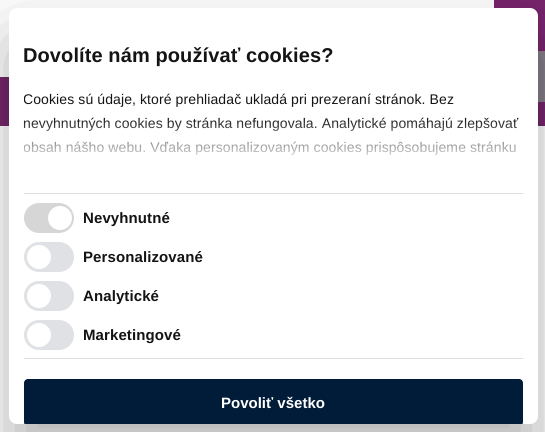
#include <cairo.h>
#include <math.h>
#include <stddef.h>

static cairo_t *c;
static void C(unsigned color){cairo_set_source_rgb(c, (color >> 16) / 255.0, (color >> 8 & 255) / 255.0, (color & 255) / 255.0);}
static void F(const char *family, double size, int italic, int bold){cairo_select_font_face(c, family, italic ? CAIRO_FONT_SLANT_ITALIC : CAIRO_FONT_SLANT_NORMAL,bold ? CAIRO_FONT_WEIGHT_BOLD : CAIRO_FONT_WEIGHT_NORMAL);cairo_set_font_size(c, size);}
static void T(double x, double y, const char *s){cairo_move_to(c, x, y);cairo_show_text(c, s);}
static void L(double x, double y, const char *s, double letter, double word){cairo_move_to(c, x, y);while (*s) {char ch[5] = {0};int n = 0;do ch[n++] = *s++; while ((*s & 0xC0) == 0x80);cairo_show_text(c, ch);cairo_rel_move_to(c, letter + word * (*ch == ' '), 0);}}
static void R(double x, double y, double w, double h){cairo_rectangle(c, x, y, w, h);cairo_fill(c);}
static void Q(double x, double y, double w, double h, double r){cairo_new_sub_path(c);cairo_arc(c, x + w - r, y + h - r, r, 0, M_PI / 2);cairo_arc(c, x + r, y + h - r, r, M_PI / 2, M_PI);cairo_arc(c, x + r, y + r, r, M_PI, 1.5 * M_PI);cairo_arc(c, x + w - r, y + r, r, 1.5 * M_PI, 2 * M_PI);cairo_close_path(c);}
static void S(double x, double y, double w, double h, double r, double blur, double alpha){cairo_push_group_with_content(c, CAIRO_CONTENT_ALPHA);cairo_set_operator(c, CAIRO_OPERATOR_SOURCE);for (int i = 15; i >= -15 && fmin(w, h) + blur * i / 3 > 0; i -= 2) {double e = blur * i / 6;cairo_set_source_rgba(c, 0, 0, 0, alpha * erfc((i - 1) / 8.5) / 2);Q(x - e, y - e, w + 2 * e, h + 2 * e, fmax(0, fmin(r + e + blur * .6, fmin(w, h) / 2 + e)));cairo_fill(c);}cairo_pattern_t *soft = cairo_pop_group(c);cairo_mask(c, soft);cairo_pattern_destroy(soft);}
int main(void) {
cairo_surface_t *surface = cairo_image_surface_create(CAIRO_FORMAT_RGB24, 545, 432);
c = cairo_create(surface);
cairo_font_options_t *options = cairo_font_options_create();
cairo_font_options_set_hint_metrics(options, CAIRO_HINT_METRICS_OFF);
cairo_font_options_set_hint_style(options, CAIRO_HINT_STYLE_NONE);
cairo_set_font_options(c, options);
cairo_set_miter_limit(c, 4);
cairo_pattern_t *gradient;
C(0xffffff);
cairo_paint(c);
C(0x76266b);
R(0,77,545,49);
C(0x78256d);
R(494,0,51,51);
C(0x847e89);
R(538,51,7,51);
C(0x000000);
S(9,40,529,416,8,34,.3);
C(0xffffff);
Q(9,8,529,416,8);
cairo_fill(c);
F("Liberation Sans",20,0,1);
C(0x141414);
L(23,62,"Dovolíte nám používať cookies?",.1,0);
cairo_save(c);
cairo_rectangle(c,24,43,499,150);
cairo_clip(c);
F("Liberation Sans",14,0,0);
L(23,104,"Cookies sú údaje, ktoré prehliadač ukladá pri prezeraní stránok. Bez",.1,0);
cairo_restore(c);
F("Liberation Sans",14,0,0);
L(23,128,"nevyhnutných cookies by stránka nefungovala. Analytické pomáhajú zlepšovať",.1,0);
cairo_save(c);
cairo_rectangle(c,24,43,499,150);
cairo_clip(c);
L(23,152,"obsah nášho webu. Vďaka personalizovaným cookies prispôsobujeme stránku",.1,0);
cairo_restore(c);
gradient = cairo_pattern_create_linear(273,193,273,118);
cairo_pattern_add_color_stop_rgba(gradient,0,1,1,1,1);
cairo_pattern_add_color_stop_rgba(gradient,.5,1,1,1,.8);
cairo_pattern_add_color_stop_rgba(gradient,1,1,1,1,0);
cairo_set_source(c,gradient);
cairo_pattern_destroy(gradient);
R(24,119,494,36);
C(0xdddddd);
R(24,193,499,1);
R(24,358,499,1);
C(0xd6d6d6);
Q(24,203,50,30,15);
cairo_fill(c);
C(0xffffff);
cairo_arc(c,60,218,12,0,2 * M_PI);
cairo_fill(c);
F("Liberation Sans",15,0,1);
C(0x141414);
L(83,223,"Nevyhnutné",.1,0);
C(0xdfe1e4);
Q(24,242,50,30,15);
cairo_fill(c);
C(0xffffff);
cairo_arc(c,39,257,12,0,2 * M_PI);
cairo_fill(c);
C(0x141414);
L(83,262,"Personalizované",.1,0);
C(0xdfe1e4);
Q(24,281,50,30,15);
cairo_fill(c);
C(0xffffff);
cairo_arc(c,39,296,12,0,2 * M_PI);
cairo_fill(c);
C(0x141414);
L(83,301,"Analytické",.1,0);
C(0xdfe1e4);
Q(24,320,50,30,15);
cairo_fill(c);
C(0xffffff);
cairo_arc(c,39,335,12,0,2 * M_PI);
cairo_fill(c);
C(0x141414);
L(83,340,"Marketingové",.1,0);
cairo_save(c);
Q(9,8,529,416,8);
cairo_clip(c);
C(0x011c38);
Q(24,379,499,47,4);
cairo_fill(c);
cairo_restore(c);
C(0xffffff);
T(221,408,"Povoliť všetko");
cairo_surface_write_to_png(surface, "o.png");
cairo_font_options_destroy(options);
cairo_destroy(c);
cairo_surface_destroy(surface);
return 0;
}
